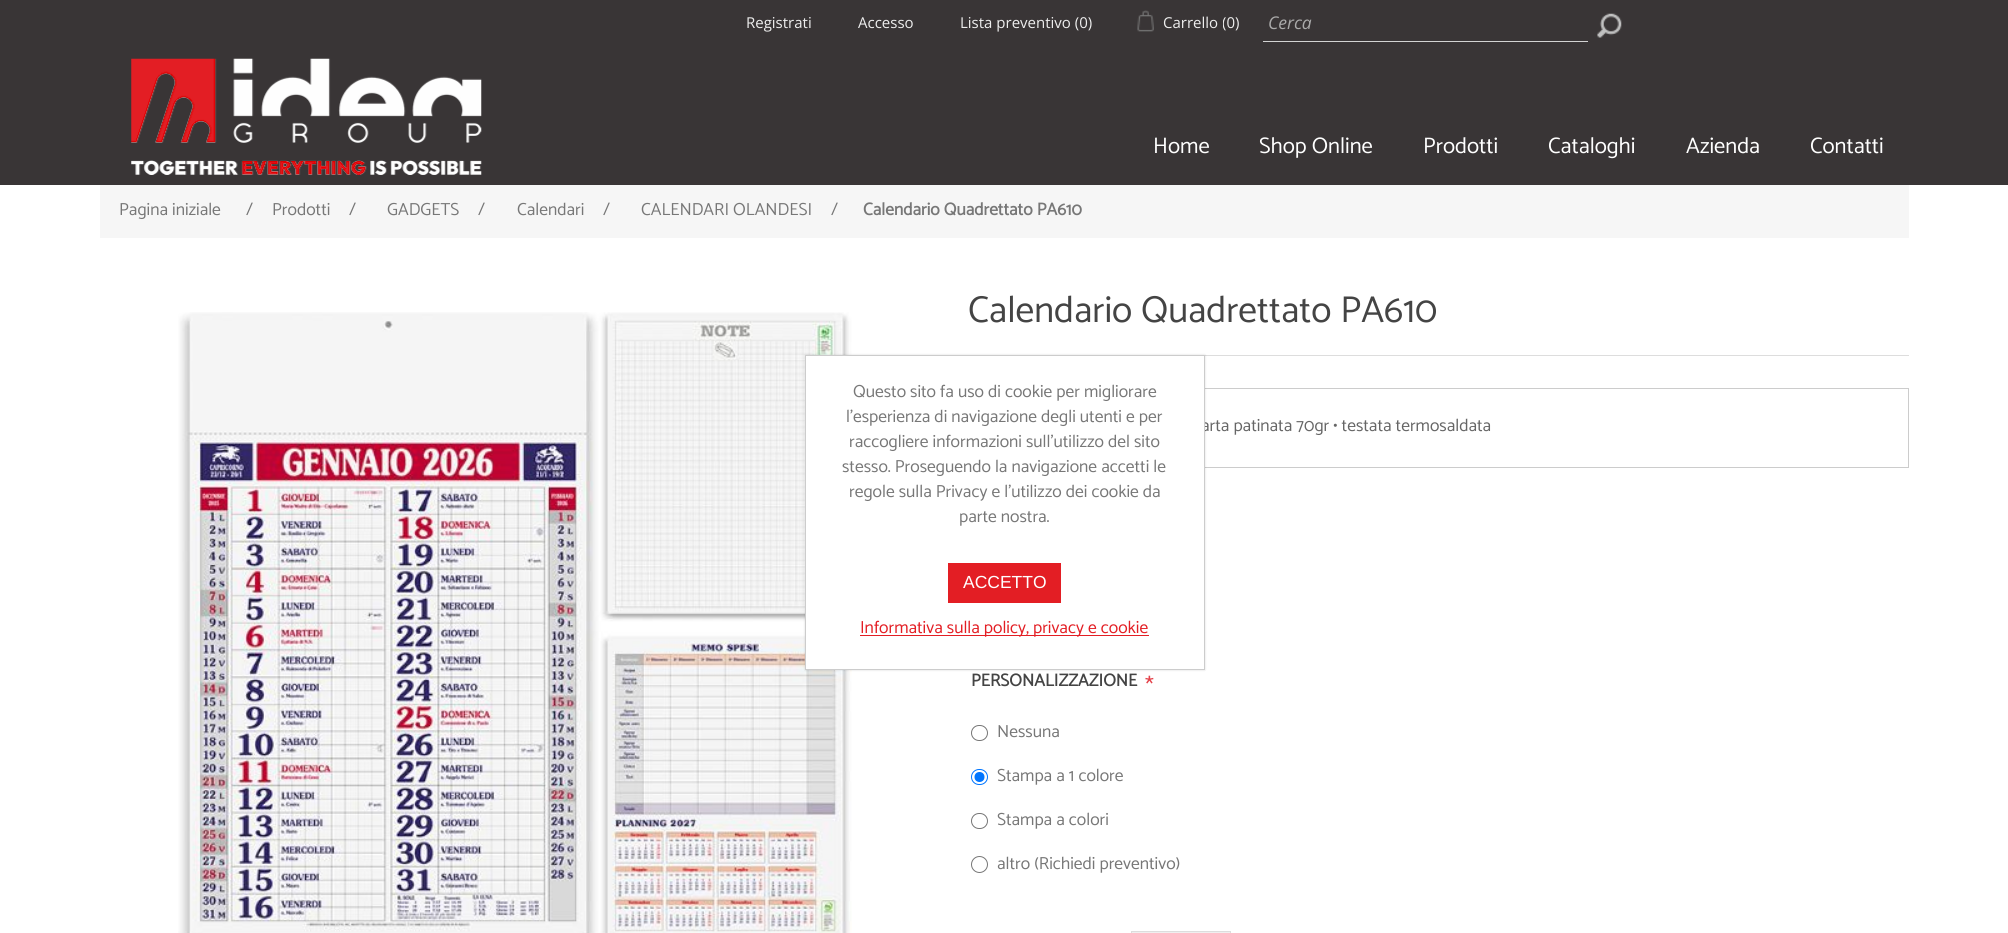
#include <cairo.h>
#include <math.h>
#include <stddef.h>

static cairo_t *c;
static void C(unsigned color){cairo_set_source_rgb(c, (color >> 16) / 255.0, (color >> 8 & 255) / 255.0, (color & 255) / 255.0);}
static void F(const char *family, double size, int italic, int bold){cairo_select_font_face(c, family, italic ? CAIRO_FONT_SLANT_ITALIC : CAIRO_FONT_SLANT_NORMAL,bold ? CAIRO_FONT_WEIGHT_BOLD : CAIRO_FONT_WEIGHT_NORMAL);cairo_set_font_size(c, size);}
static void T(double x, double y, const char *s){cairo_move_to(c, x, y);cairo_show_text(c, s);}
static void R(double x, double y, double w, double h){cairo_rectangle(c, x, y, w, h);cairo_fill(c);}
static void Q(double x, double y, double w, double h, double r){cairo_new_sub_path(c);cairo_arc(c, x + w - r, y + h - r, r, 0, M_PI / 2);cairo_arc(c, x + r, y + h - r, r, M_PI / 2, M_PI);cairo_arc(c, x + r, y + r, r, M_PI, 1.5 * M_PI);cairo_arc(c, x + w - r, y + r, r, 1.5 * M_PI, 2 * M_PI);cairo_close_path(c);}
static void S(double x, double y, double w, double h, double r, double blur, double alpha){cairo_push_group_with_content(c, CAIRO_CONTENT_ALPHA);cairo_set_operator(c, CAIRO_OPERATOR_SOURCE);for (int i = 15; i >= -15 && fmin(w, h) + blur * i / 3 > 0; i -= 2) {double e = blur * i / 6;cairo_set_source_rgba(c, 0, 0, 0, alpha * erfc((i - 1) / 8.5) / 2);Q(x - e, y - e, w + 2 * e, h + 2 * e, fmax(0, fmin(r + e + blur * .6, fmin(w, h) / 2 + e)));cairo_fill(c);}cairo_pattern_t *soft = cairo_pop_group(c);cairo_mask(c, soft);cairo_pattern_destroy(soft);}
static void I(const char *path, double x, double y, double w, double h){cairo_surface_t *image = cairo_image_surface_create_from_png(path);cairo_save(c);cairo_set_source_surface(c, image, x, y);cairo_rectangle(c, x, y, w, h);cairo_fill(c);cairo_restore(c);cairo_surface_destroy(image);}
int main(void) {
cairo_surface_t *surface = cairo_image_surface_create(CAIRO_FORMAT_RGB24, 2008, 933);
c = cairo_create(surface);
cairo_font_options_t *options = cairo_font_options_create();
cairo_font_options_set_hint_metrics(options, CAIRO_HINT_METRICS_OFF);
cairo_font_options_set_hint_style(options, CAIRO_HINT_STYLE_NONE);
cairo_set_font_options(c, options);
cairo_set_miter_limit(c, 4);
C(0xffffff);
cairo_paint(c);
C(0x393536);
R(0,0,2008,185);
F("Open Sans",15,0,0);
C(0xeeeeee);
T(746,28,"Registrati");
T(858,28,"Accesso");
T(960,28,"Lista preventivo (0)");
I("1.png",1137,10,17,22);
T(1163,28,"Carrello");
cairo_save(c);
cairo_rectangle(c,1223,3,17,40);
cairo_clip(c);
T(1222,28,"(0)");
cairo_restore(c);
C(0xd3d3d3);
R(1263,41,325,1);
F("Open Sans",17.5,1,0);
C(0xaaaaaa);
T(1268,29,"Cerca");
I("2.png",1597,13,25,25);
I("3.png",131,58,351,117);
F("Catamaran Thin",22.5,0,0);
C(0xffffff);
T(1153,153,"Home");
T(1259,153,"Shop Online");
T(1423,153,"Prodotti");
T(1548,153,"Cataloghi");
T(1686,153,"Azienda");
T(1810,153,"Contatti");
C(0xf6f6f6);
R(100,185,1809,53);
F("Catamaran Thin",17.5,0,0);
C(0x777777);
T(119,215,"Pagina iniziale");
T(246,215,"/");
T(272,215,"Prodotti");
T(349,215,"/");
T(387,215,"GADGETS");
T(478,215,"/");
T(517,215,"Calendari");
T(603,215,"/");
T(641,215,"CALENDARI OLANDESI");
T(831,215,"/");
F("Catamaran",17.5,0,1);
T(863,215,"Calendario Quadrettato PA610");
I("4.png",178,312,674,621);
C(0xdddddd);
R(1205,355,704,1);
F("Catamaran Thin",37.5,0,0);
C(0x444444);
T(968,322,"Calendario Quadrettato PA610");
cairo_rectangle(c,969.5,388.5,939,79);
C(0xcccccc);
cairo_set_line_width(c,1);
cairo_stroke(c);
F("Catamaran Thin",17.5,0,0);
C(0x666666);
T(1201,431,"arta patinata 70gr • testata termosaldata");
F("Catamaran",17.5,0,1);
C(0x444444);
T(971,686,"PERSONALIZZAZIONE");
F("Catamaran Thin",25,0,0);
C(0xe4434b);
T(1145,695,"*");
Q(971.5,725.5,16,15,7.5);
C(0x767676);
cairo_stroke(c);
F("Catamaran Thin",17.5,0,0);
C(0x777777);
T(997,737,"Nessuna");
Q(971.5,769.5,16,15,7.5);
C(0x0075ff);
cairo_stroke(c);
cairo_arc(c,979.5,777,5,0,2 * M_PI);
cairo_fill(c);
C(0x777777);
T(997,781,"Stampa a 1 colore");
Q(971.5,813.5,16,15,7.5);
C(0x767676);
cairo_stroke(c);
C(0x777777);
T(997,825,"Stampa a colori");
cairo_new_path(c);
cairo_arc(c,979.5,864.5,8,0,2 * M_PI);
C(0x767676);
cairo_stroke(c);
C(0x777777);
T(997,869,"altro (Richiedi preventivo)");
C(0xefefef);
cairo_rectangle(c,1131.5,931.5,99,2);
cairo_fill_preserve(c);
C(0xdddddd);
cairo_stroke(c);
C(0x000000);
S(805,355,400,315,0,1,.15);
C(0xffffff);
cairo_rectangle(c,805.5,355.5,399,314);
cairo_fill_preserve(c);
C(0xcccccc);
cairo_stroke(c);
C(0x777777);
T(853,397,"Questo sito fa uso di cookie per migliorare");
T(846,422,"l’esperienza di navigazione degli utenti e per");
T(849,447,"raccogliere informazioni sull’utilizzo del sito");
T(842,472,"stesso. Proseguendo la navigazione accetti le");
T(849,497,"regole sulla Privacy e l'utilizzo dei cookie da");
T(959,522,"parte nostra.");
C(0xe31e24);
R(948,563,113,40);
F("Liberation Sans",17.5,0,0);
C(0xffffff);
T(963,588,"ACCETTO");
C(0xe31e24);
R(860,635,289,1);
F("Catamaran Thin",17.5,0,0);
T(860,633,"Informativa sulla policy, privacy e cookie");
cairo_surface_write_to_png(surface, "o.png");
cairo_font_options_destroy(options);
cairo_destroy(c);
cairo_surface_destroy(surface);
return 0;
}
